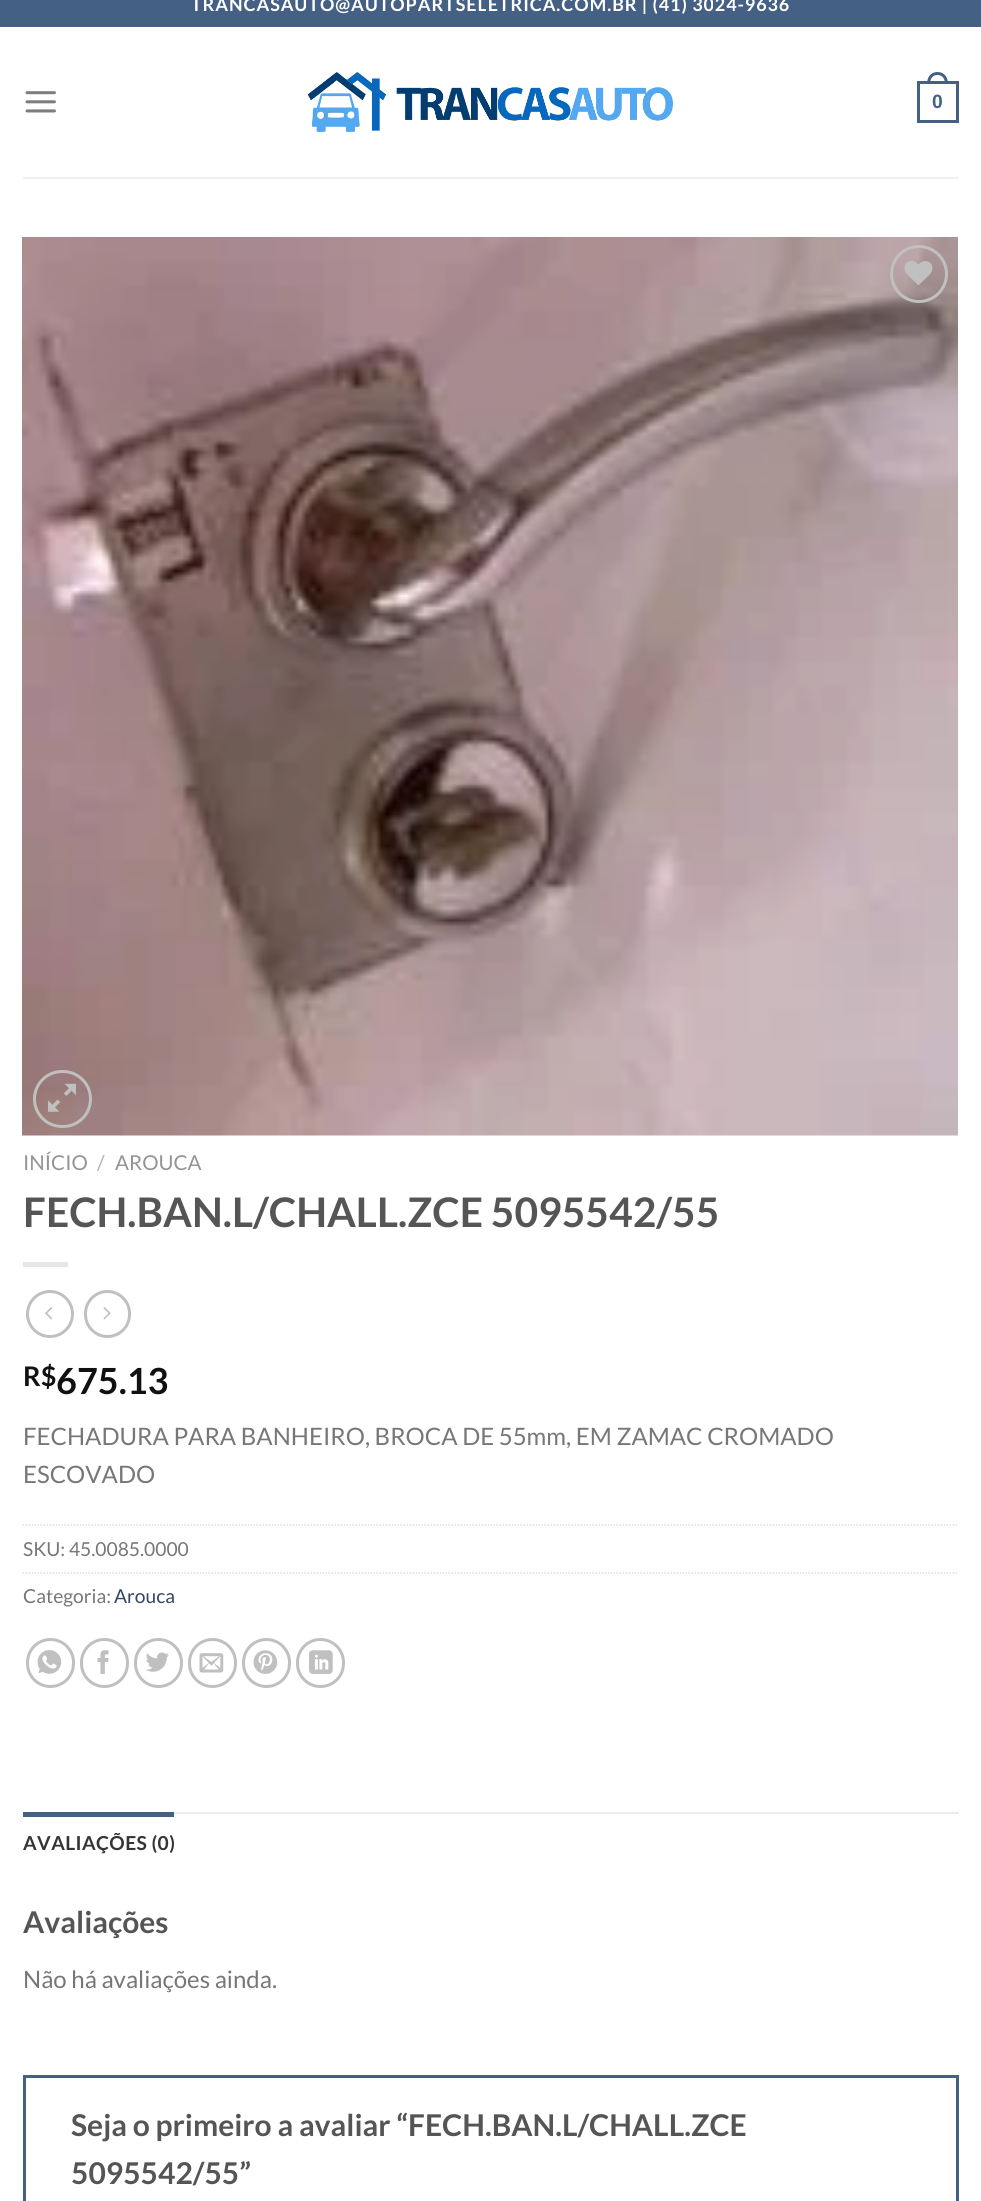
#include <cairo.h>
#include <math.h>
#include <stddef.h>

static cairo_t *c;
static void C(unsigned color){cairo_set_source_rgb(c, (color >> 16) / 255.0, (color >> 8 & 255) / 255.0, (color & 255) / 255.0);}
static void F(const char *family, double size, int italic, int bold){cairo_select_font_face(c, family, italic ? CAIRO_FONT_SLANT_ITALIC : CAIRO_FONT_SLANT_NORMAL,bold ? CAIRO_FONT_WEIGHT_BOLD : CAIRO_FONT_WEIGHT_NORMAL);cairo_set_font_size(c, size);}
static void T(double x, double y, const char *s){cairo_move_to(c, x, y);cairo_show_text(c, s);}
static void L(double x, double y, const char *s, double letter, double word){cairo_move_to(c, x, y);while (*s) {char ch[5] = {0};int n = 0;do ch[n++] = *s++; while ((*s & 0xC0) == 0x80);cairo_show_text(c, ch);cairo_rel_move_to(c, letter + word * (*ch == ' '), 0);}}
static void R(double x, double y, double w, double h){cairo_rectangle(c, x, y, w, h);cairo_fill(c);}
static void Q(double x, double y, double w, double h, double r){cairo_new_sub_path(c);cairo_arc(c, x + w - r, y + h - r, r, 0, M_PI / 2);cairo_arc(c, x + r, y + h - r, r, M_PI / 2, M_PI);cairo_arc(c, x + r, y + r, r, M_PI, 1.5 * M_PI);cairo_arc(c, x + w - r, y + r, r, 1.5 * M_PI, 2 * M_PI);cairo_close_path(c);}
static void I(const char *path, double x, double y, double w, double h){cairo_surface_t *image = cairo_image_surface_create_from_png(path);cairo_save(c);cairo_set_source_surface(c, image, x, y);cairo_rectangle(c, x, y, w, h);cairo_fill(c);cairo_restore(c);cairo_surface_destroy(image);}
int main(void) {
cairo_surface_t *surface = cairo_image_surface_create(CAIRO_FORMAT_RGB24, 981, 2201);
c = cairo_create(surface);
cairo_font_options_t *options = cairo_font_options_create();
cairo_font_options_set_hint_metrics(options, CAIRO_HINT_METRICS_OFF);
cairo_font_options_set_hint_style(options, CAIRO_HINT_STYLE_NONE);
cairo_set_font_options(c, options);
cairo_set_miter_limit(c, 4);
C(0xffffff);
cairo_paint(c);
C(0x446084);
R(0,0,981,27);
F("Lato",18,0,1);
C(0xffffff);
L(191,11,"TRANCASAUTO@AUTOPARTSELETRICA.COM.BR | (41) 3024-9636",.9,0);
I("1.png",25,91,31,22);
I("2.png",307,72,366,60);
cairo_rectangle(c,918.5,82.5,39,39);
C(0x446084);
cairo_set_line_width(c,3);
cairo_stroke(c);
cairo_set_fill_rule(c,CAIRO_FILL_RULE_EVEN_ODD);
cairo_new_path(c);
cairo_move_to(c,937.5,72);
cairo_curve_to(c,944.5,72,948,77.5,948,84);
cairo_line_to(c,927,84);
cairo_curve_to(c,927,77.5,930.5,72,937.5,72);
cairo_close_path(c);
cairo_move_to(c,937.5,75);
cairo_curve_to(c,943,75,945,79.5,945,84);
cairo_line_to(c,930,84);
cairo_curve_to(c,930,79.5,932,75,937.5,75);
cairo_close_path(c);
cairo_fill(c);
F("Liberation Sans",19.25,0,1);
T(932,108,"0");
C(0xf1f1f1);
R(23,177,936,2);
I("3.png",22,237,936,899);
cairo_arc(c,919,274,27.5,0,2 * M_PI);
C(0xc0c0c0);
cairo_stroke(c);
I("4.png",904,261,29,24);
Q(34.5,1071.5,56,55,27.5);
cairo_stroke(c);
I("5.png",48,1083,28,29);
F("Lato",20.5,0,0);
C(0x949494);
T(23,1170,"INÍCIO");
C(0xb2b2b2);
T(97,1170,"/");
C(0x949494);
T(115,1170,"AROUCA");
F("Lato",40.75,0,1);
C(0x555555);
T(23,1227,"FECH.BAN.L/CHALL.ZCE 5095542/55");
C(0xe6e6e6);
R(23,1262,45,5);
cairo_new_path(c);
cairo_arc(c,50,1314,22.5,0,2 * M_PI);
C(0xc0c0c0);
cairo_stroke(c);
I("6.png",45,1307,8,13);
Q(85.5,1291.5,44,45,22);
cairo_stroke(c);
I("7.png",103,1307,8,13);
F("Lato",27,0,1);
C(0x111111);
T(23,1386,"R$");
F("Lato",36,0,1);
T(56,1394,"675.13");
F("Lato",24,0,0);
C(0x777777);
T(23,1445,"FECHADURA PARA BANHEIRO, BROCA DE 55mm, EM ZAMAC CROMADO");
T(23,1483,"ESCOVADO");
cairo_new_path(c);
cairo_move_to(c,22.5,1525);
cairo_line_to(c,958.5,1525);
C(0xdddddd);
cairo_set_line_width(c,1.5);
cairo_set_dash(c,(double[]){1.5,1.5},2,0);
cairo_stroke(c);
F("Lato",19.25,0,0);
C(0x777777);
T(23,1556,"SKU: 45.0085.0000");
cairo_new_path(c);
cairo_move_to(c,22.5,1573);
cairo_line_to(c,958.5,1573);
C(0xdddddd);
cairo_stroke(c);
C(0x777777);
T(23,1603,"Categoria:");
C(0x334862);
T(114,1603,"Arouca");
Q(27.5,1639.5,46,47,23);
C(0xc0c0c0);
cairo_set_line_width(c,3);
cairo_set_dash(c,NULL,0,0);
cairo_stroke(c);
I("8.png",37,1650,25,24);
Q(81.5,1639.5,46,47,23);
cairo_stroke(c);
I("9.png",97,1650,12,24);
Q(135.5,1639.5,46,47,23);
cairo_stroke(c);
I("10.png",146,1652,23,20);
Q(189.5,1639.5,46,47,23);
cairo_stroke(c);
I("11.png",199,1653,25,20);
Q(243.5,1639.5,46,47,23);
cairo_stroke(c);
I("12.png",253,1650,25,24);
Q(297.5,1639.5,46,47,23);
cairo_stroke(c);
I("13.png",309,1650,24,24);
C(0xececec);
R(174,1812,785,2);
C(0x446084);
R(23,1812,151,5);
F("Lato",19.25,0,1);
C(0x353535);
L(23,1850,"AVALIAÇÕES (0)",.4,0);
F("Lato",30,0,1);
C(0x555555);
T(23,1933,"Avaliações");
F("Lato",24,0,0);
C(0x777777);
T(23,1988,"Não há avaliações ainda.");
cairo_rectangle(c,24.5,2076.5,933,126);
C(0x446084);
cairo_stroke(c);
F("Lato",30,0,1);
C(0x555555);
T(71,2136,"Seja o primeiro a avaliar “FECH.BAN.L/CHALL.ZCE");
T(71,2184,"5095542/55”");
cairo_surface_write_to_png(surface, "o.png");
cairo_font_options_destroy(options);
cairo_destroy(c);
cairo_surface_destroy(surface);
return 0;
}
